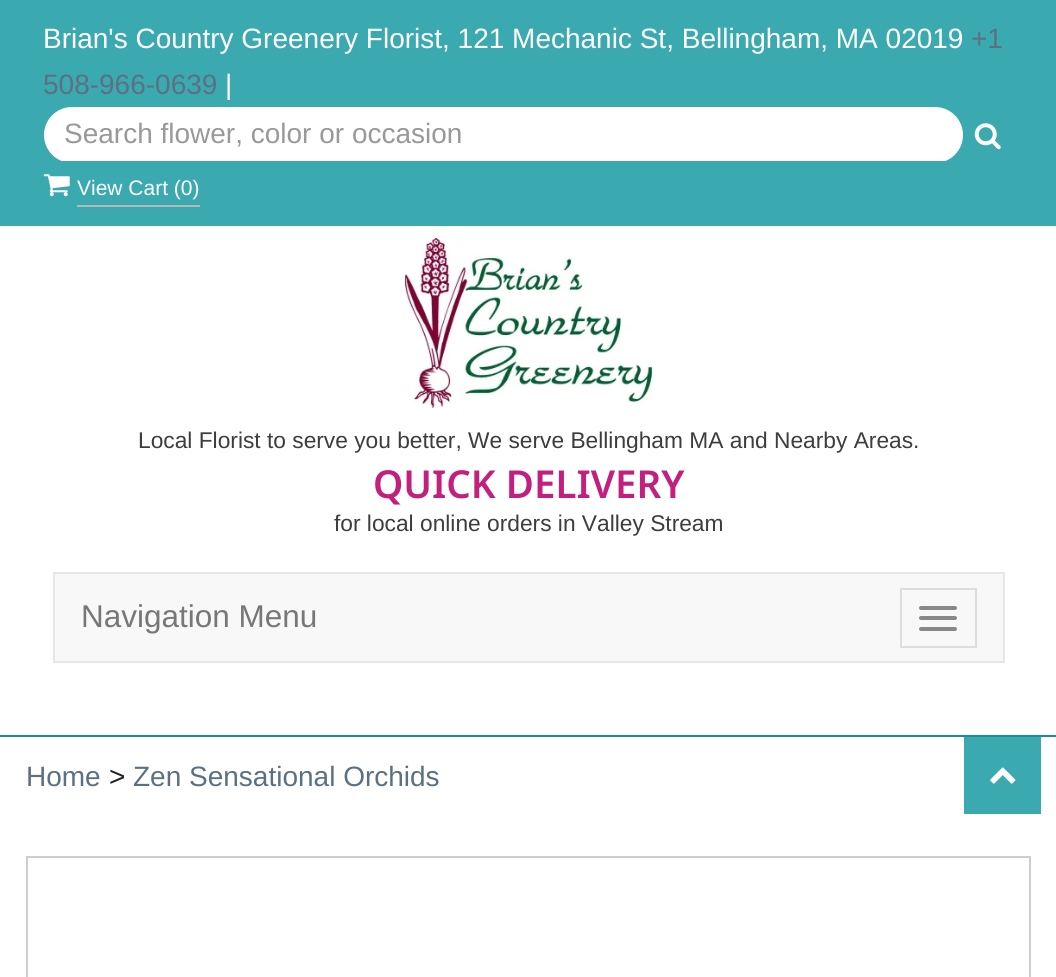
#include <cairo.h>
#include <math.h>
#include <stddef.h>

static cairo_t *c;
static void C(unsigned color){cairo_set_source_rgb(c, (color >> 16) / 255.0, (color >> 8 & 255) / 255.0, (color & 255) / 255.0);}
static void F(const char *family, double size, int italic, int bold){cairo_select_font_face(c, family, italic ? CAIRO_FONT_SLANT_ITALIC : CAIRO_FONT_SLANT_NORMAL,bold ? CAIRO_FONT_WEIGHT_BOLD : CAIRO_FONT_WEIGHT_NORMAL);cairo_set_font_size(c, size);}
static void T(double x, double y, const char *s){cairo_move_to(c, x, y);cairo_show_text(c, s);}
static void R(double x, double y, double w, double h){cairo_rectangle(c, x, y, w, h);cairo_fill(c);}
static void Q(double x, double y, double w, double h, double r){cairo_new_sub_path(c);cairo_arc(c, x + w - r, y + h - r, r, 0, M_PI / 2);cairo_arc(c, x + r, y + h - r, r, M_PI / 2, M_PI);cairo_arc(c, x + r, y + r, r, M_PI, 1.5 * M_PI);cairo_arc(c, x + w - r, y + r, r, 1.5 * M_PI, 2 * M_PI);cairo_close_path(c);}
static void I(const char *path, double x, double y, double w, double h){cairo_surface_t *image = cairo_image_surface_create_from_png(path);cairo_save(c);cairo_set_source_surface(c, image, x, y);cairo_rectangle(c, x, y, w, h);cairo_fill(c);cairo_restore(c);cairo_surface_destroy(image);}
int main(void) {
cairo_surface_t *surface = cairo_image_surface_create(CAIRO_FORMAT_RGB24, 1056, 977);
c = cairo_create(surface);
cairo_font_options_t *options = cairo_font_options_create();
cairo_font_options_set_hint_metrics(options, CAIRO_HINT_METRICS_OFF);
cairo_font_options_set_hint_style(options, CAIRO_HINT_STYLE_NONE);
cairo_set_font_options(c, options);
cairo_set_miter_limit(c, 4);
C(0xffffff);
cairo_paint(c);
C(0x198e96);
R(0,735,1056,2);
C(0x3ba9b0);
R(0,0,1056,226);
F("Liberation Sans",28,0,0);
C(0xffffff);
T(43,48,"Brian's Country Greenery Florist, 121 Mechanic St, Bellingham, MA 02019");
C(0x5b7083);
T(971,48,"+1");
T(43,94,"508-966-0639");
C(0xffffff);
T(225,94,"|");
Q(44,107,919,56,28);
cairo_fill(c);
C(0x3ba9b0);
R(58,161,891,2);
C(0x999999);
T(64,143,"Search flower, color or occasion");
I("1.png",974,123,27,27);
I("2.png",43,174,27,23);
F("Liberation Sans",21,0,0);
C(0xffffff);
T(77,195,"View Cart (0)");
C(0xb7b7b7);
R(77,205,123,2);
I("3.png",402,235,253,173);
F("Liberation Sans",22.75,0,0);
C(0x3d3d3d);
T(138,448,"Local Florist to serve you better, We serve Bellingham MA and Nearby Areas.");
F("Noto Sans SemiBold",38.5,0,0);
C(0xc1207e);
T(373,498,"QUICK DELIVERY");
F("Liberation Sans",22.75,0,0);
C(0x3d3d3d);
T(334,531,"for local online orders in Valley Stream");
C(0xf8f8f8);
cairo_rectangle(c,54,573,950,89);
cairo_fill_preserve(c);
C(0xe7e7e7);
cairo_stroke(c);
F("Liberation Sans",31.5,0,0);
C(0x777777);
T(81,627,"Navigation Menu");
cairo_rectangle(c,901,589,75,58);
C(0xdddddd);
cairo_stroke(c);
C(0x888888);
Q(919,606,38,4,2);
cairo_fill(c);
Q(919,616,38,4,2);
cairo_fill(c);
Q(919,627,38,4,2);
cairo_fill(c);
F("Liberation Sans",28,0,0);
C(0x5b7083);
T(26,786,"Home");
C(0x212121);
T(109,786,">");
C(0x5b7083);
T(133,786,"Zen Sensational Orchids");
cairo_rectangle(c,27,857,1003,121);
C(0xcecece);
cairo_stroke(c);
C(0x3ba9b0);
R(964,737,77,77);
I("4.png",990,767,26,17);
cairo_surface_write_to_png(surface, "o.png");
cairo_font_options_destroy(options);
cairo_destroy(c);
cairo_surface_destroy(surface);
return 0;
}
